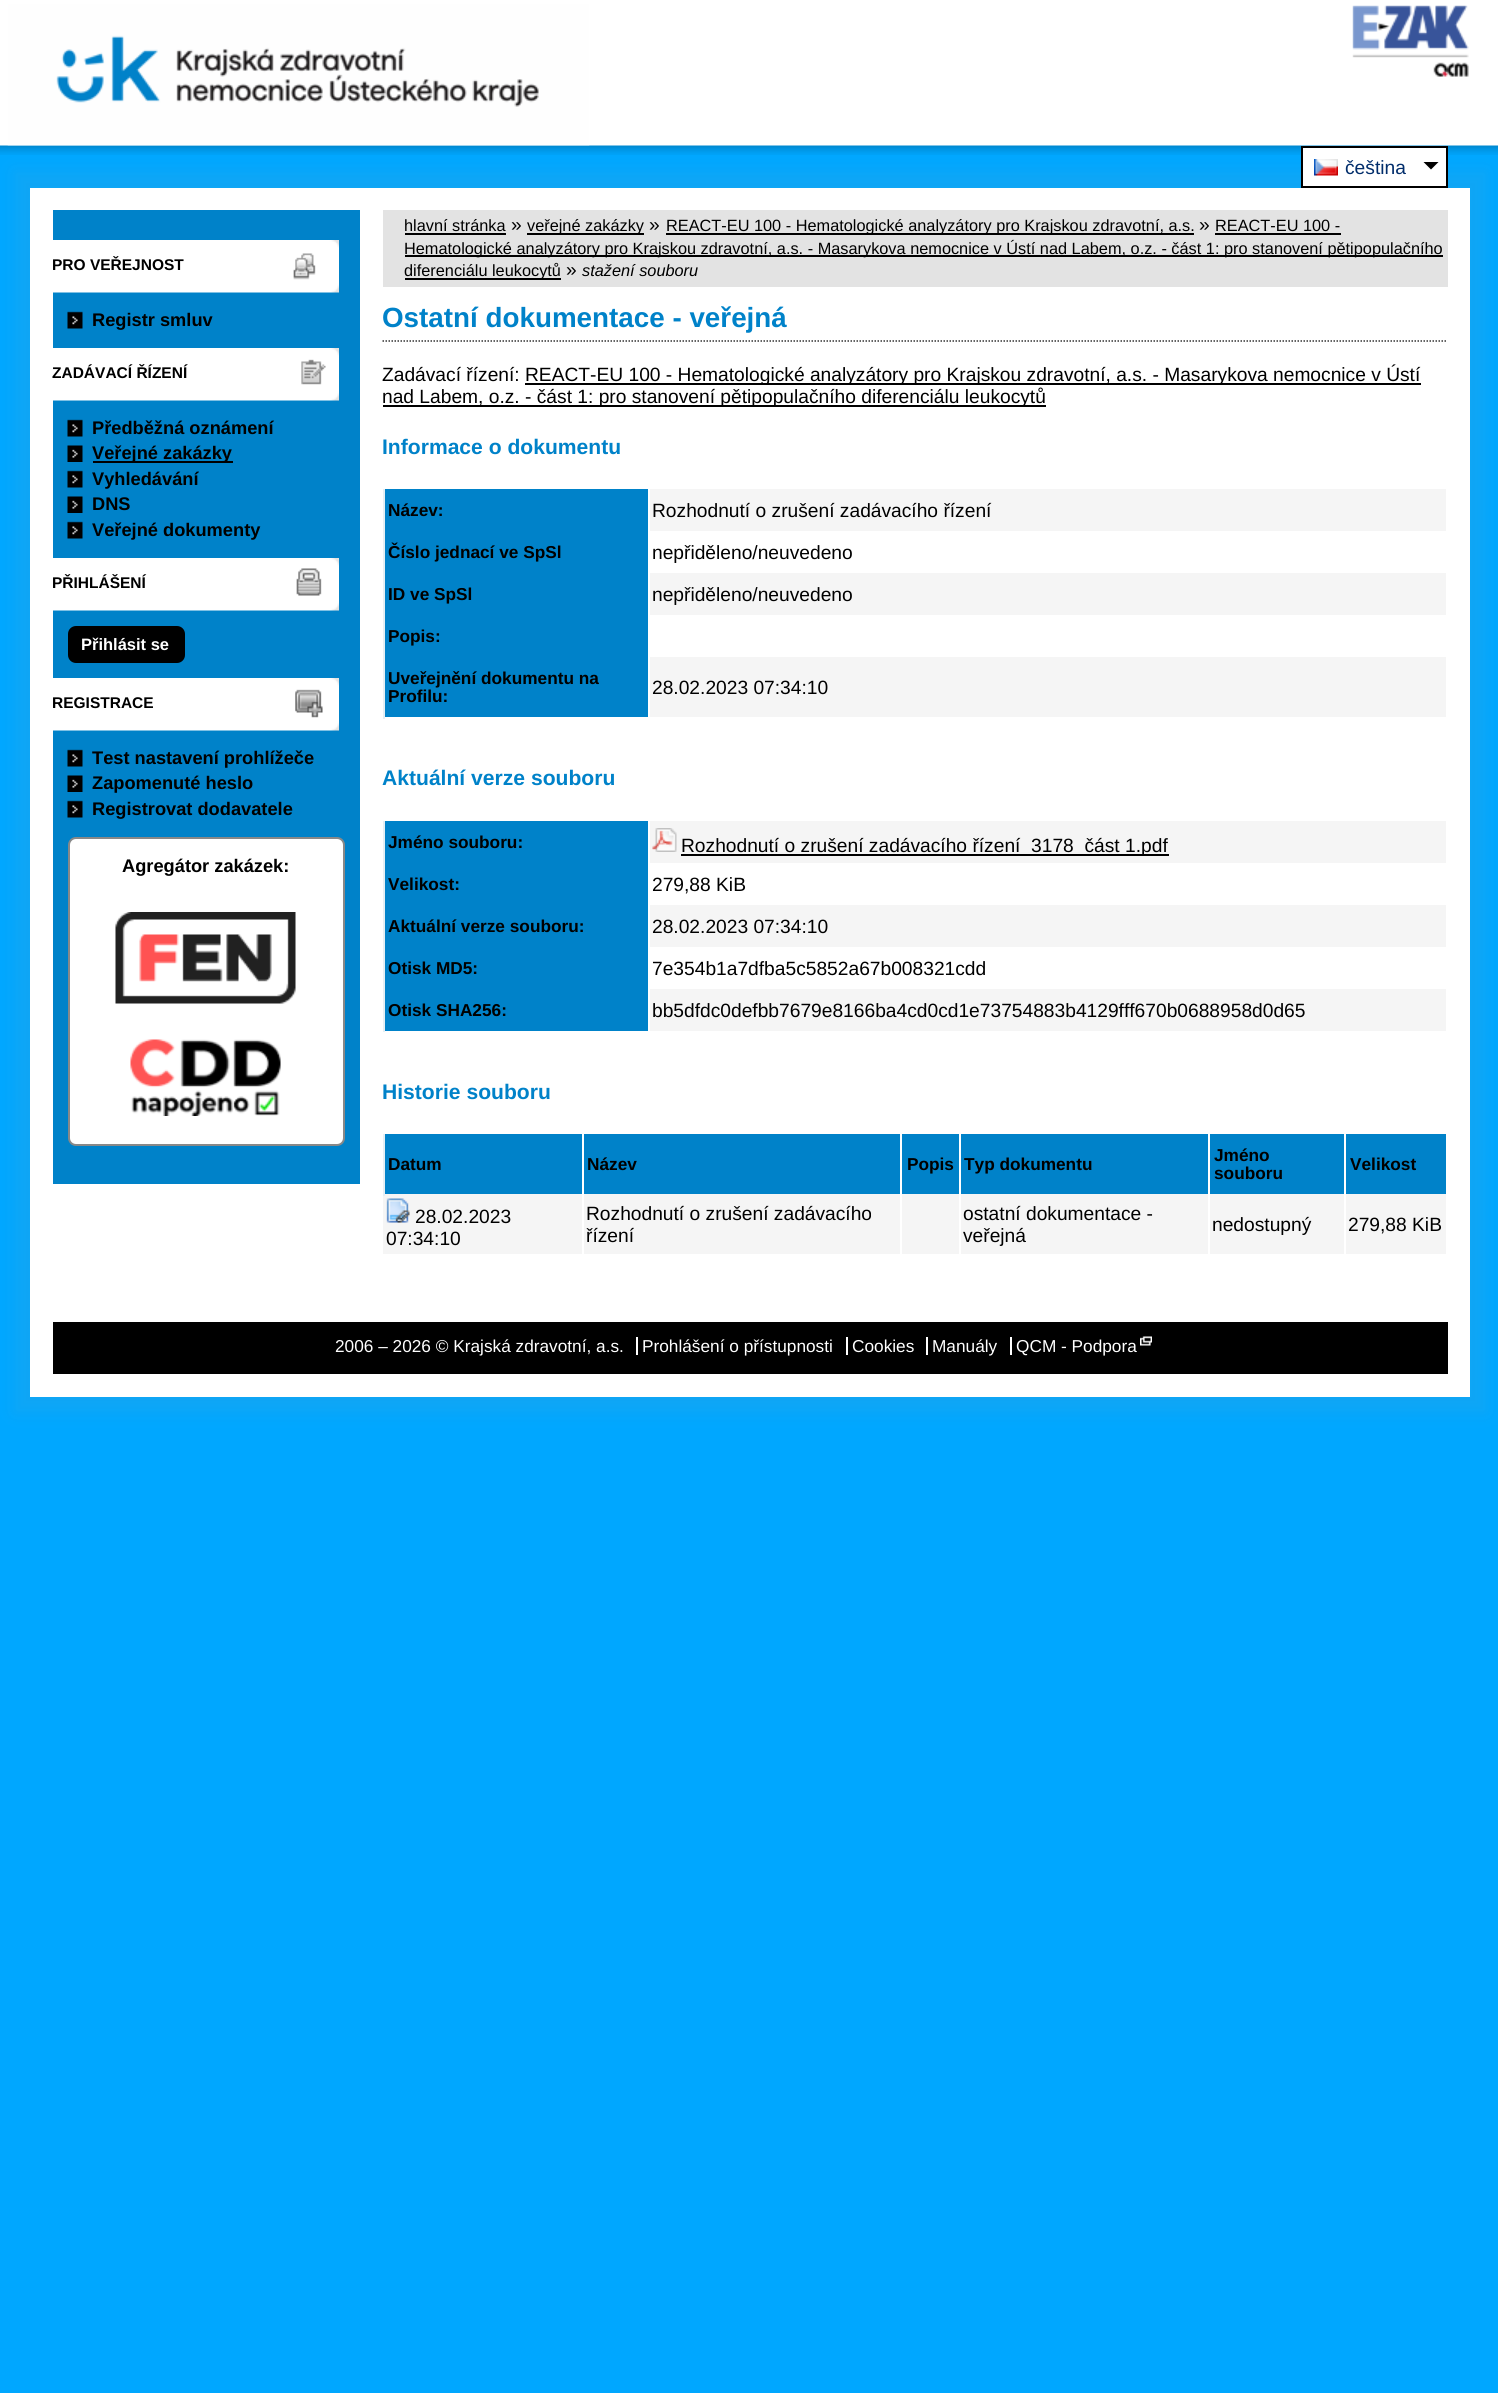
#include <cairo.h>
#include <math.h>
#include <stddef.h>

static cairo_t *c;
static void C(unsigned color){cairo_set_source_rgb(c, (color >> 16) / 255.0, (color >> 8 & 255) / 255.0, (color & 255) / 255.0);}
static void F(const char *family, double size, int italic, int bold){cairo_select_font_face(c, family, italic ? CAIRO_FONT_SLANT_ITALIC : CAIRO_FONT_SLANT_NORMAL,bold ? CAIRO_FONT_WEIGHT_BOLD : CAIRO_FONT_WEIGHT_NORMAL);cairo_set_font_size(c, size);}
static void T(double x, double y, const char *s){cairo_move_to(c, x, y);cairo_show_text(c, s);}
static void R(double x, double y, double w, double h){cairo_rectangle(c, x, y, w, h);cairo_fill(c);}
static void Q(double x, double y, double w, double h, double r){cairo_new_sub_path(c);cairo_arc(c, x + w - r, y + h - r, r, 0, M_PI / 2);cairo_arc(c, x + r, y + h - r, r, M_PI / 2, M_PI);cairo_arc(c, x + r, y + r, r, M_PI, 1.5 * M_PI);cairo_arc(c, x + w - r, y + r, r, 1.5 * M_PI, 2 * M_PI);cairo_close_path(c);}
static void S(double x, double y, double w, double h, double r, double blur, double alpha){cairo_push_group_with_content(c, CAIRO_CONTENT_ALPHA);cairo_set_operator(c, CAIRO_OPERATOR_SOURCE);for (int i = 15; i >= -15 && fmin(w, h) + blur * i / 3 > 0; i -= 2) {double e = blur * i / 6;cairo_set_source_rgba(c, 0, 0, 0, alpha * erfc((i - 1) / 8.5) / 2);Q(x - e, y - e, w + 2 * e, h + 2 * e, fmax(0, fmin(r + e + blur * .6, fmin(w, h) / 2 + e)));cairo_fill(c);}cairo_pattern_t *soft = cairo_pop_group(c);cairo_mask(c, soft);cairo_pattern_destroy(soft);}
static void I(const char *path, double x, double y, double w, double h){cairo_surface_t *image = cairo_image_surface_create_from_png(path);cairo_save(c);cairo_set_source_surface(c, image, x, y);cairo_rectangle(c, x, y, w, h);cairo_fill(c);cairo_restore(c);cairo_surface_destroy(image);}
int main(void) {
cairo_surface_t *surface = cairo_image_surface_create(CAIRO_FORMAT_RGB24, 1498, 2393);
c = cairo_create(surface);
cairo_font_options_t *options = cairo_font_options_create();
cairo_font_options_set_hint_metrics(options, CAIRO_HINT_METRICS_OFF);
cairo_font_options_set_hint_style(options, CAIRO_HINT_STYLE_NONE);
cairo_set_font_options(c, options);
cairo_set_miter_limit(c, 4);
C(0x00a7ff);
cairo_paint(c);
I("1.png",0,0,1498,155);
I("2.png",7,4,583,142);
I("3.png",1352,5,117,72);
C(0x999999);
S(14,171,1473,1242,0,8,.1);
C(0xffffff);
cairo_rectangle(c,1302,147,145,40);
cairo_fill_preserve(c);
C(0x000000);
cairo_stroke(c);
I("4.png",1314,159,24,17);
F("Liberation Sans",19.2,0,0);
C(0x012d6b);
T(1345,174,"čeština");
C(0x000000);
cairo_new_path(c);
cairo_move_to(c,1423.5,162);
cairo_line_to(c,1438.5,162);
cairo_line_to(c,1431,169.5);
cairo_close_path(c);
cairo_fill(c);
C(0xffffff);
R(30,188,1440,1209);
C(0x0082c9);
R(53,210,307,974);
I("5.png",53,240,286,53);
F("Liberation Sans",15.5,0,1);
C(0x000000);
T(52,270,"PRO VEŘEJNOST");
I("6.png",67,311,16,18);
F("Liberation Sans",18.25,0,1);
T(92,326,"Registr smluv");
I("7.png",53,348,286,53);
F("Liberation Sans",15.5,0,1);
T(52,378,"ZADÁVACÍ ŘÍZENÍ");
I("6.png",67,419,16,18);
F("Liberation Sans",18.25,0,1);
T(92,434,"Předběžná oznámení");
I("8.png",67,445,16,17);
R(93,461,140,2);
T(92,459,"Veřejné zakázky");
I("6.png",67,470,16,18);
T(92,485,"Vyhledávání");
I("8.png",67,496,16,17);
T(92,510,"DNS");
I("6.png",67,521,16,18);
T(92,536,"Veřejné dokumenty");
I("9.png",53,558,286,53);
F("Liberation Sans",15.5,0,1);
T(52,588,"PŘIHLÁŠENÍ");
Q(68,626,117,37,8);
cairo_fill(c);
F("Liberation Sans",16.5,0,1);
C(0xffffff);
T(81,650,"Přihlásit se");
I("10.png",53,678,286,53);
F("Liberation Sans",15.5,0,1);
C(0x000000);
T(52,708,"REGISTRACE");
I("6.png",67,749,16,18);
F("Liberation Sans",18.25,0,1);
T(92,764,"Test nastavení prohlížeče");
I("8.png",67,775,16,17);
T(92,789,"Zapomenuté heslo");
I("6.png",67,800,16,18);
T(92,815,"Registrovat dodavatele");
C(0xffffff);
Q(69,838,275,307,7);
cairo_fill_preserve(c);
C(0x888888);
cairo_stroke(c);
C(0x000000);
T(122,872,"Agregátor zakázek:");
I("11.png",115,912,181,92);
I("12.png",130,1039,151,77);
C(0xe3e3e3);
R(383,210,1065,77);
F("Liberation Sans",16.32,0,0);
C(0x000000);
T(404,231,"hlavní stránka");
R(405,233,101,2);
F("Liberation Sans",19.2,0,0);
T(511,231,"»");
R(527,233,117,2);
F("Liberation Sans",16.32,0,0);
T(527,231,"veřejné zakázky");
F("Liberation Sans",19.2,0,0);
T(649,231,"»");
R(666,233,528,2);
F("Liberation Sans",16.32,0,0);
T(666,231,"REACT-EU 100 - Hematologické analyzátory pro Krajskou zdravotní, a.s.");
F("Liberation Sans",19.2,0,0);
T(1199,231,"»");
F("Liberation Sans",16.32,0,0);
T(1215,231,"REACT-EU 100 -");
R(1215,233,126,2);
R(405,255,1038,2);
T(404,254,"Hematologické analyzátory pro Krajskou zdravotní, a.s. - Masarykova nemocnice v Ústí nad Labem, o.z. - část 1: pro stanovení pětipopulačního");
R(405,278,156,2);
T(404,276,"diferenciálu leukocytů");
F("Liberation Sans",19.2,0,0);
T(566,276,"»");
F("Liberation Sans",16.32,1,0);
T(582,276,"stažení souboru");
cairo_new_path(c);
cairo_move_to(c,382.5,341);
cairo_line_to(c,1447.5,341);
C(0x333333);
cairo_set_line_width(c,1.5);
cairo_set_dash(c,(double[]){1.5,1.5},2,0);
cairo_stroke(c);
F("Liberation Sans",27.8,0,1);
C(0x0082c9);
T(382,327,"Ostatní dokumentace - veřejná");
F("Liberation Sans",19.2,0,0);
C(0x000000);
T(382,381,"Zadávací řízení:");
R(525,383,896,2);
T(525,381,"REACT-EU 100 - Hematologické analyzátory pro Krajskou zdravotní, a.s. - Masarykova nemocnice v Ústí");
R(383,405,663,2);
T(382,403,"nad Labem, o.z. - část 1: pro stanovení pětipopulačního diferenciálu leukocytů");
F("Liberation Sans",21.1,0,1);
C(0x0082c9);
T(382,454,"Informace o dokumentu");
C(0xf5f5f5);
R(650,489,796,42);
C(0x0082c9);
R(385,489,263,228);
F("Liberation Sans",17.25,0,1);
C(0x000000);
T(388,516,"Název:");
F("Liberation Sans",19.2,0,0);
T(652,517,"Rozhodnutí o zrušení zadávacího řízení");
F("Liberation Sans",17.25,0,1);
T(388,558,"Číslo jednací ve SpSl");
F("Liberation Sans",19.2,0,0);
T(652,559,"nepřiděleno/neuvedeno");
C(0xf5f5f5);
R(650,573,796,42);
F("Liberation Sans",17.25,0,1);
C(0x000000);
T(388,600,"ID ve SpSl");
F("Liberation Sans",19.2,0,0);
T(652,601,"nepřiděleno/neuvedeno");
F("Liberation Sans",17.25,0,1);
T(388,642,"Popis:");
C(0xf5f5f5);
R(650,657,796,60);
C(0xe5eff5);
R(383,489,2,230);
C(0x000000);
T(388,684,"Uveřejnění dokumentu na");
T(388,702,"Profilu:");
F("Liberation Sans",19.2,0,0);
T(652,694,"28.02.2023 07:34:10");
F("Liberation Sans",21.1,0,1);
C(0x0082c9);
T(382,785,"Aktuální verze souboru");
C(0xf5f5f5);
R(650,821,796,42);
C(0x0082c9);
R(385,821,263,210);
F("Liberation Sans",17.25,0,1);
C(0x000000);
T(388,848,"Jméno souboru:");
I("13.png",652,828,25,24);
R(681,854,488,2);
F("Liberation Sans",19.2,0,0);
T(681,852,"Rozhodnutí o zrušení zadávacího řízení_3178_část 1.pdf");
F("Liberation Sans",17.25,0,1);
T(388,890,"Velikost:");
F("Liberation Sans",19.2,0,0);
T(652,891,"279,88 KiB");
C(0xf5f5f5);
R(650,905,796,42);
F("Liberation Sans",17.25,0,1);
C(0x000000);
T(388,932,"Aktuální verze souboru:");
F("Liberation Sans",19.2,0,0);
T(652,933,"28.02.2023 07:34:10");
F("Liberation Sans",17.25,0,1);
T(388,974,"Otisk MD5:");
F("Liberation Sans",19.2,0,0);
T(652,975,"7e354b1a7dfba5c5852a67b008321cdd");
C(0xf5f5f5);
R(650,989,796,42);
C(0xe5eff5);
R(383,821,2,211);
F("Liberation Sans",17.25,0,1);
C(0x000000);
T(388,1016,"Otisk SHA256:");
F("Liberation Sans",19.2,0,0);
T(652,1017,"bb5dfdc0defbb7679e8166ba4cd0cd1e73754883b4129fff670b0688958d0d65");
F("Liberation Sans",21.1,0,1);
C(0x0082c9);
T(382,1099,"Historie souboru");
R(385,1134,197,60);
C(0xf5f5f5);
R(383,1194,1063,60);
C(0xe5eff5);
R(383,1134,2,62);
F("Liberation Sans",17.25,0,1);
C(0x000000);
T(388,1170,"Datum");
C(0x0082c9);
R(584,1134,316,60);
C(0x000000);
T(587,1170,"Název");
C(0x0082c9);
R(902,1134,57,60);
C(0x000000);
T(907,1170,"Popis");
C(0x0082c9);
R(961,1134,247,60);
C(0x000000);
T(964,1170,"Typ dokumentu");
C(0x0082c9);
R(1210,1134,134,60);
C(0x000000);
T(1214,1161,"Jméno");
T(1214,1179,"souboru");
C(0x0082c9);
R(1346,1134,100,60);
C(0x000000);
T(1350,1170,"Velikost");
C(0xffffff);
R(582,1194,2,62);
I("14.png",386,1198,24,25);
F("Liberation Sans",19.2,0,0);
C(0x000000);
T(415,1223,"28.02.2023");
T(386,1245,"07:34:10");
C(0xffffff);
R(900,1194,2,62);
C(0x000000);
T(586,1220,"Rozhodnutí o zrušení zadávacího");
T(586,1242,"řízení");
C(0xffffff);
R(959,1194,2,62);
R(1208,1194,2,62);
C(0x000000);
T(963,1220,"ostatní dokumentace -");
T(963,1242,"veřejná");
C(0xffffff);
R(1344,1194,2,62);
C(0x000000);
T(1212,1231,"nedostupný");
T(1348,1231,"279,88 KiB");
R(53,1322,1395,52);
F("Liberation Sans",17.25,0,0);
C(0xffffff);
T(335,1352,"2006 – 2026 © Krajská zdravotní, a.s.");
R(636,1337,2,18);
T(642,1352,"Prohlášení o přístupnosti");
R(846,1337,2,18);
T(852,1352,"Cookies");
R(926,1337,2,18);
T(932,1352,"Manuály");
R(1010,1337,2,18);
T(1016,1352,"QCM - Podpora");
I("15.png",1140,1336,12,10);
cairo_surface_write_to_png(surface, "o.png");
cairo_font_options_destroy(options);
cairo_destroy(c);
cairo_surface_destroy(surface);
return 0;
}
